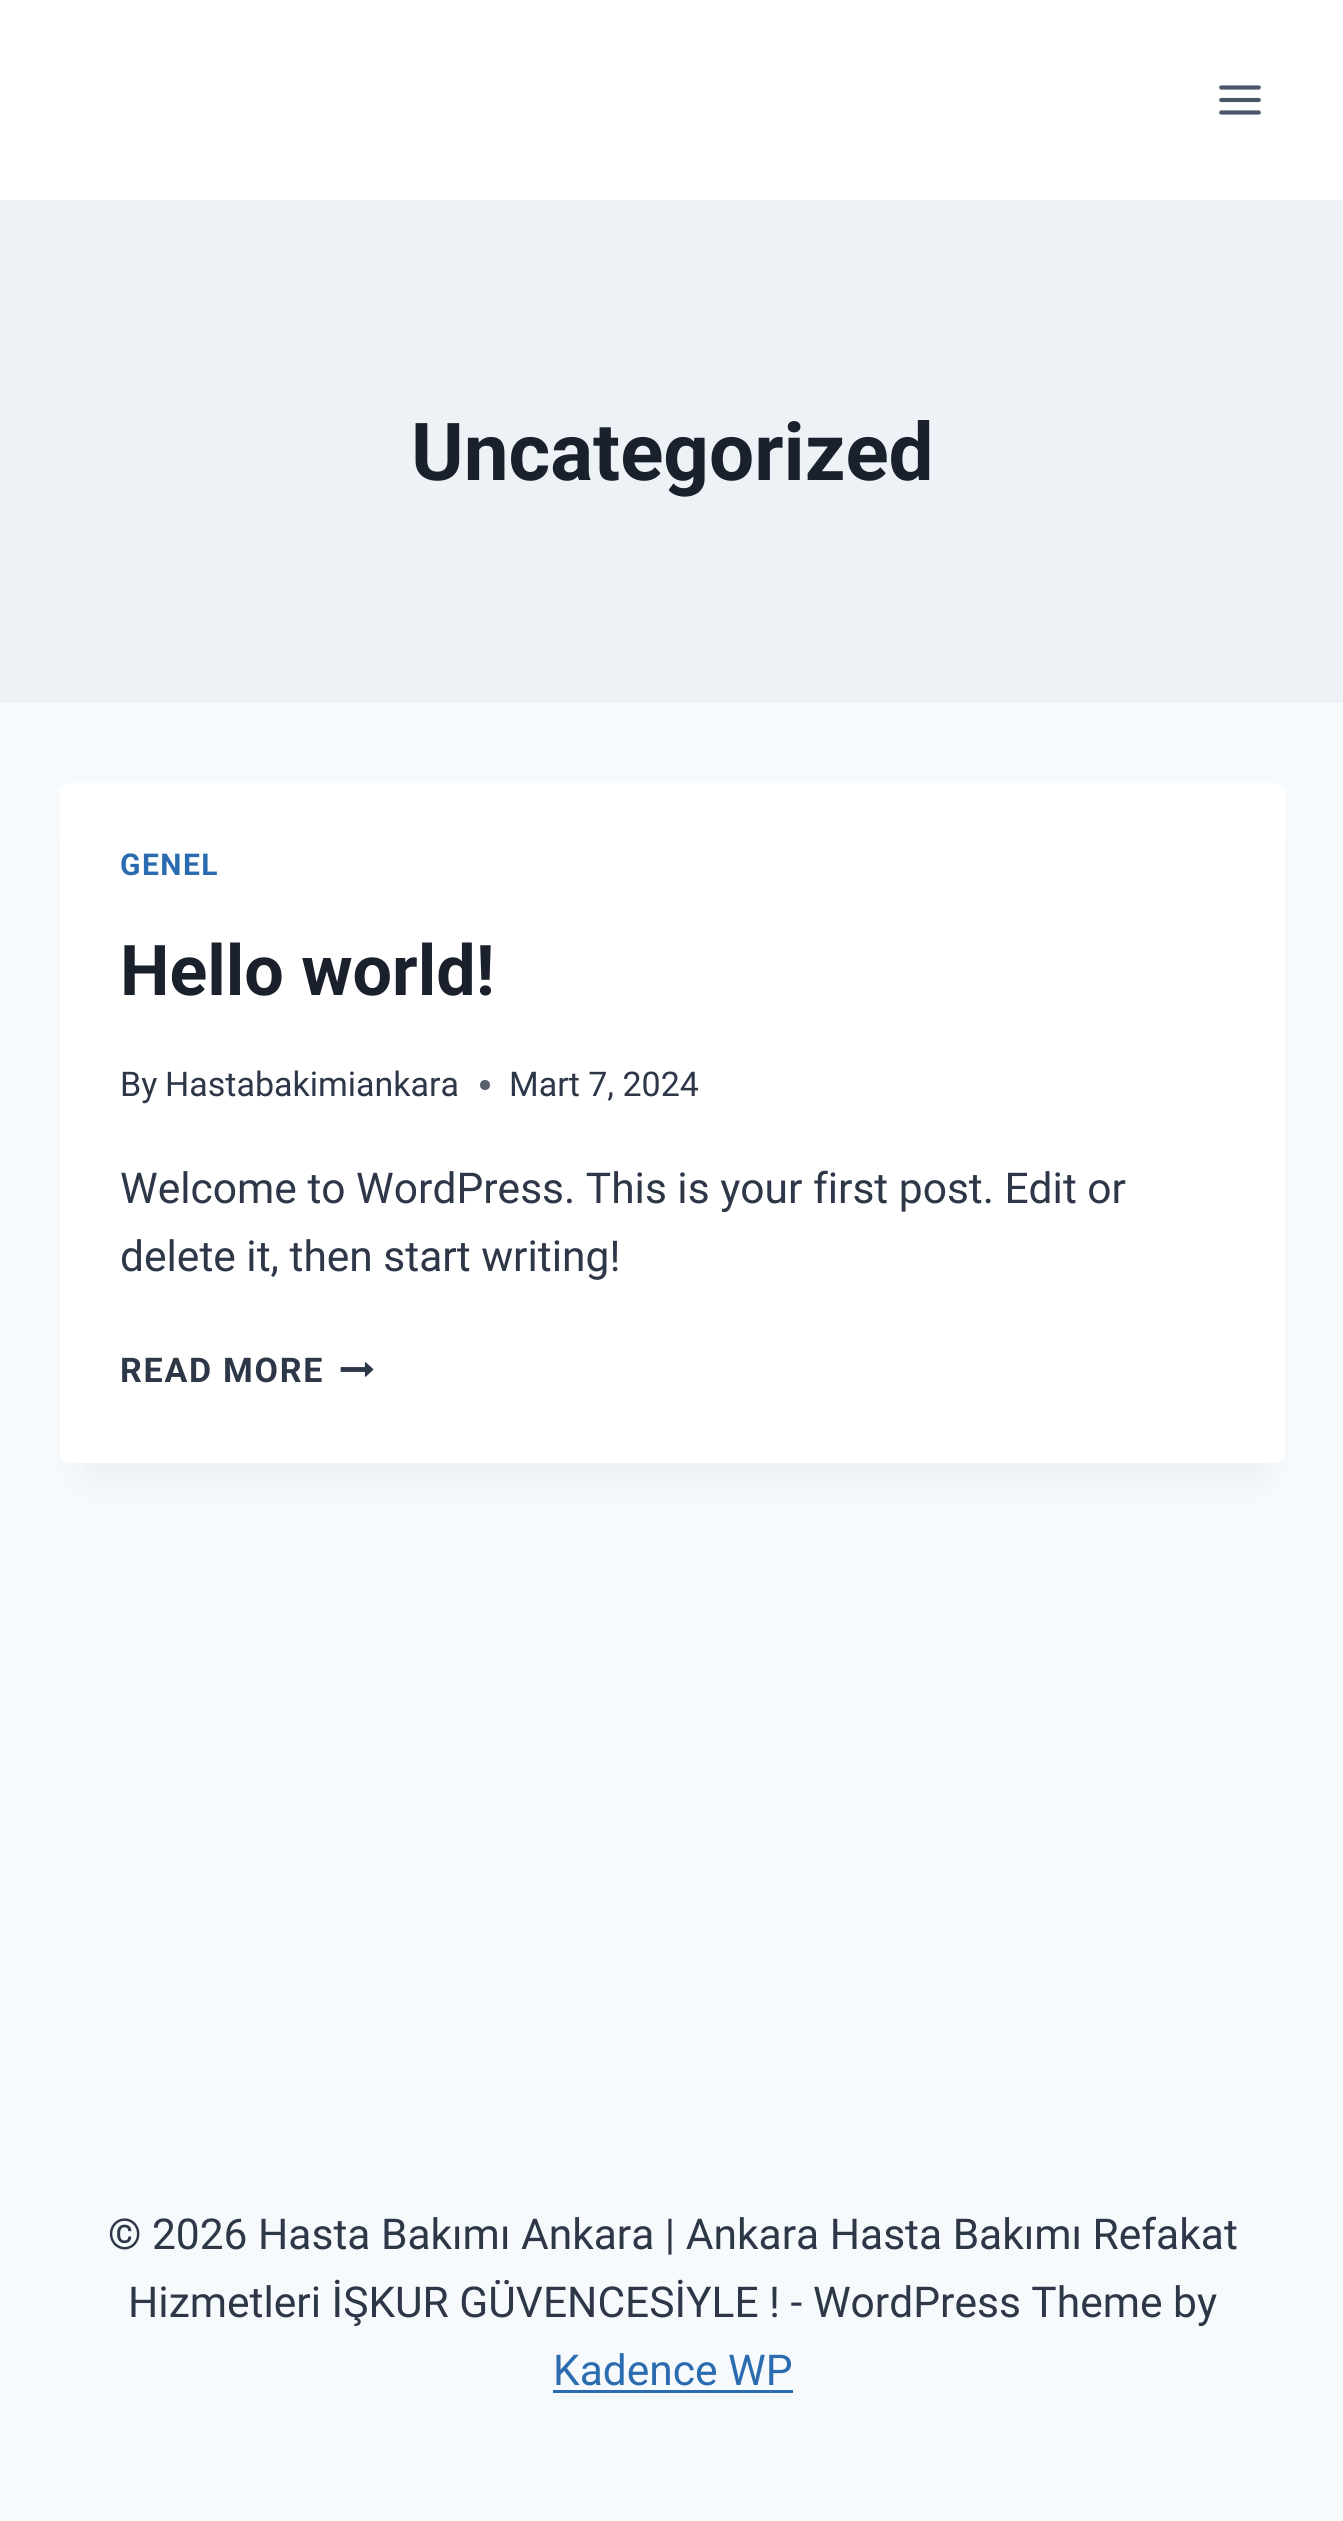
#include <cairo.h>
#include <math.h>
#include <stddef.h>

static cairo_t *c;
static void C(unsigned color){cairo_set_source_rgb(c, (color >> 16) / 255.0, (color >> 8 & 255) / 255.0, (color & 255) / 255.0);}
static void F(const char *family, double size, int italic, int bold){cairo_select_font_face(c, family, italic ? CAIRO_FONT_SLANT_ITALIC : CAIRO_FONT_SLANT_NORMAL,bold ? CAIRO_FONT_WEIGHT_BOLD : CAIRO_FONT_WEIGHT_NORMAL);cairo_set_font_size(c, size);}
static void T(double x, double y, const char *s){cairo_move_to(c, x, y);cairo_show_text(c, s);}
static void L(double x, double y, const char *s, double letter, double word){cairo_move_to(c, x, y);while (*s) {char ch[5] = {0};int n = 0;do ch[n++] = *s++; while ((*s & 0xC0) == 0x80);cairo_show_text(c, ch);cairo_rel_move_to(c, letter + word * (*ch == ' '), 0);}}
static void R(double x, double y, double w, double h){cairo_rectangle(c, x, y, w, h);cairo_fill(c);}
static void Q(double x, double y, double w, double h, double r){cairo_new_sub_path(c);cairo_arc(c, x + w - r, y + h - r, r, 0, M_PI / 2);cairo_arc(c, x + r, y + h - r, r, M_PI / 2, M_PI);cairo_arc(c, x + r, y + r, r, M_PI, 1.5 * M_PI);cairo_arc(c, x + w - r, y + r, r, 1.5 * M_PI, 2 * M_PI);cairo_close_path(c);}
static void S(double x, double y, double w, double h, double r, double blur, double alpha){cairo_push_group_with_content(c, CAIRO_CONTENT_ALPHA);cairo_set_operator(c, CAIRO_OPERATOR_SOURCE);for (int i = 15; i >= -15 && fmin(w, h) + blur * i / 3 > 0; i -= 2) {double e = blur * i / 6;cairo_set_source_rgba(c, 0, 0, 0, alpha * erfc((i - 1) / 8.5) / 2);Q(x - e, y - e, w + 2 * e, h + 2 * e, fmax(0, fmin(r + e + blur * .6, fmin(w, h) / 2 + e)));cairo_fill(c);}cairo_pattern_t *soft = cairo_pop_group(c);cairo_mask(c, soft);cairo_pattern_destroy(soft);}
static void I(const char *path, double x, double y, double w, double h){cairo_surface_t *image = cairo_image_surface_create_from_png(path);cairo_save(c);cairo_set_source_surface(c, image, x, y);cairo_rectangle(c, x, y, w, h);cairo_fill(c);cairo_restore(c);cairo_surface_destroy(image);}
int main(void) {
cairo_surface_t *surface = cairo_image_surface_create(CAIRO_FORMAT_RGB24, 1343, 2521);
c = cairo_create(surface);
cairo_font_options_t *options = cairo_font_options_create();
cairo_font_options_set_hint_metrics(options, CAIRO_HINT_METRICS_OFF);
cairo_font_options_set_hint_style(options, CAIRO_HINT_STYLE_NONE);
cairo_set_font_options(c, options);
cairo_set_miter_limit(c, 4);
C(0xf7fafc);
cairo_paint(c);
C(0xffffff);
R(0,0,1343,200);
I("1.png",1219,85,42,30);
C(0xedf2f7);
R(0,200,1343,503);
F("Roboto",80,0,1);
C(0x1a202c);
T(411,480,"Uncategorized");
C(0x000000);
S(85,845,1175,630,0,19,.05);
C(0xffffff);
Q(60,783,1225,680,10);
cairo_fill(c);
F("Roboto",30,0,1);
C(0x2b6cb0);
L(120,875,"GENEL",1.5,0);
F("Roboto",70,0,1);
C(0x1a202c);
T(120,995,"Hello world!");
F("Roboto",34,0,0);
C(0x2d3748);
T(120,1096,"By");
T(165,1096,"Hastabakimiankara");
C(0x575f6d);
cairo_new_path(c);
cairo_arc(c,485,1085,5,0,2 * M_PI);
cairo_fill(c);
C(0x2d3748);
T(509,1096,"Mart 7, 2024");
F("Roboto",42.5,0,0);
T(120,1203,"Welcome to WordPress. This is your first post. Edit or");
T(120,1271,"delete it, then start writing!");
F("Roboto",34,0,1);
L(120,1382,"READ MORE",1.75,0);
I("2.png",340,1362,34,15);
F("Roboto",42.5,0,0);
T(108,2249,"© 2026 Hasta Bakımı Ankara | Ankara Hasta Bakımı Refakat");
T(128,2317,"Hizmetleri İŞKUR GÜVENCESİYLE ! - WordPress Theme by");
C(0x2b6cb0);
T(553,2385,"Kadence WP");
R(553,2390,240,3);
cairo_surface_write_to_png(surface, "o.png");
cairo_font_options_destroy(options);
cairo_destroy(c);
cairo_surface_destroy(surface);
return 0;
}
